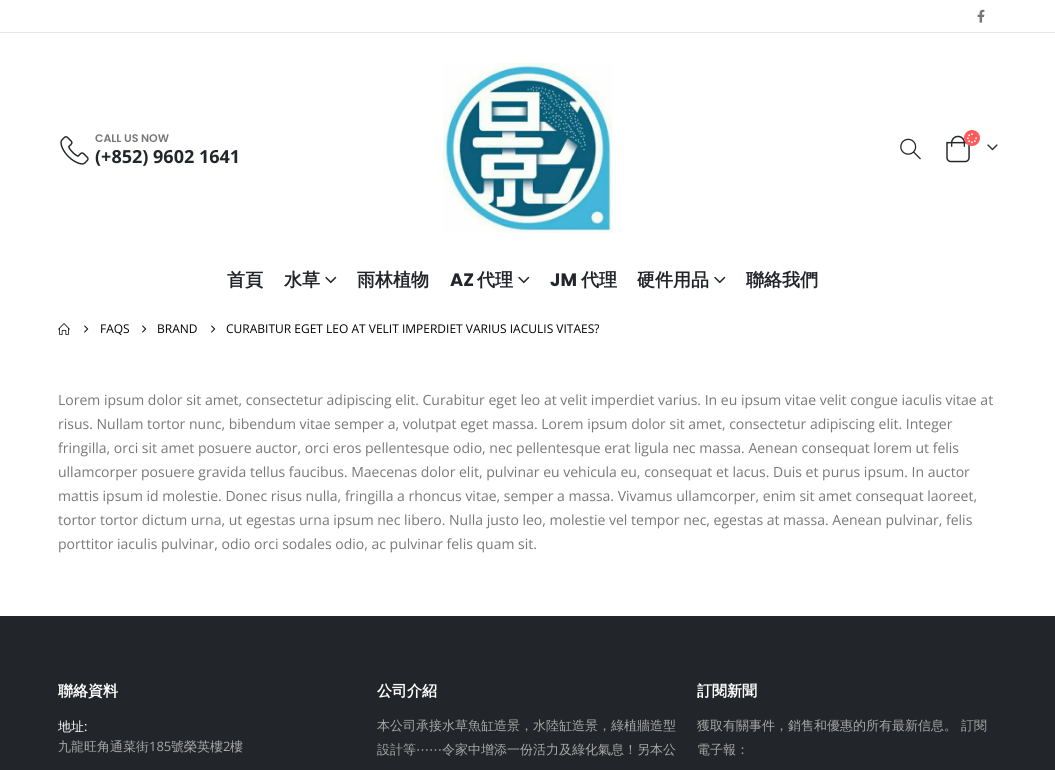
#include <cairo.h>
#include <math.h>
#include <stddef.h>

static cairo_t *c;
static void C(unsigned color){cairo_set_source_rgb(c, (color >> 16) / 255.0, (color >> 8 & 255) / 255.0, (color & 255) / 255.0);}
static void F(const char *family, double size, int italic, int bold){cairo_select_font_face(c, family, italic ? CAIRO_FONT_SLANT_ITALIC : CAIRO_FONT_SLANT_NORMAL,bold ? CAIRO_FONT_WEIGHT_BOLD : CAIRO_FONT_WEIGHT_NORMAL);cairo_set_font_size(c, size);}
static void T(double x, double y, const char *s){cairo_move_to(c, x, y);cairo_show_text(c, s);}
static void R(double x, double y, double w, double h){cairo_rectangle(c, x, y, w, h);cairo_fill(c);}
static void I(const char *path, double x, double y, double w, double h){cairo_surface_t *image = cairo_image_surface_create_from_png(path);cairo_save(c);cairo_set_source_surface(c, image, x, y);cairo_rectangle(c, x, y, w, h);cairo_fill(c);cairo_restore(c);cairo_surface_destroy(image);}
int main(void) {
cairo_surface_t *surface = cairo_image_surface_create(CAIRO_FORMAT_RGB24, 1055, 770);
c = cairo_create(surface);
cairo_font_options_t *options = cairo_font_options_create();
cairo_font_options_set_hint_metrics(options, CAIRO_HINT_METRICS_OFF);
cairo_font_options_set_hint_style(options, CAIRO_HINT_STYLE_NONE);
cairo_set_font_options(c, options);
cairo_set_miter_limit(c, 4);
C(0xffffff);
cairo_paint(c);
C(0xe7e7e7);
R(0,32,1055,1);
I("1.png",977,9,8,14);
I("2.png",60,136,29,29);
F("Poppins SemiBold",11,0,0);
C(0x777777);
T(95,142,"CALL US NOW");
F("Open Sans",18,0,1);
C(0x222529);
T(95,163,"(+852) 9602 1641");
I("3.png",443,63,170,170);
I("4.png",900,138,21,22);
I("5.png",946,135,24,28);
C(0xff5b5b);
cairo_arc(c,972,138,8,0,2 * M_PI);
cairo_fill(c);
I("6.png",967,133,10,11);
I("7.png",987,144,11,7);
F("WenQuanYi Zen Hei",18,0,1);
C(0x222529);
T(227,286,"首頁");
T(284,286,"水草");
I("8.png",325,276,12,8);
T(357,286,"雨林植物");
F("Poppins",18,0,1);
T(450,286,"AZ");
F("WenQuanYi Zen Hei",18,0,1);
T(477,286,"代理");
I("8.png",518,276,12,8);
F("Poppins",18,0,1);
T(550,286,"JM");
F("WenQuanYi Zen Hei",18,0,1);
T(581,286,"代理");
T(637,286,"硬件用品");
I("8.png",714,276,12,8);
T(746,286,"聯絡我們");
I("9.png",58,323,12,12);
I("10.png",84,325,5,8);
F("Open Sans",12,0,0);
C(0x000000);
T(100,333,"FAQS");
I("10.png",142,325,5,8);
T(157,333,"BRAND");
I("10.png",211,325,5,8);
T(226,333,"CURABITUR EGET LEO AT VELIT IMPERDIET VARIUS IACULIS VITAES?");
F("Open Sans",14,0,0);
C(0x777777);
T(58,405,"Lorem ipsum dolor sit amet, consectetur adipiscing elit. Curabitur eget leo at velit imperdiet varius. In eu ipsum vitae velit congue iaculis vitae at");
T(58,429,"risus. Nullam tortor nunc, bibendum vitae semper a, volutpat eget massa. Lorem ipsum dolor sit amet, consectetur adipiscing elit. Integer");
T(58,453,"fringilla, orci sit amet posuere auctor, orci eros pellentesque odio, nec pellentesque erat ligula nec massa. Aenean consequat lorem ut felis");
T(58,477,"ullamcorper posuere gravida tellus faucibus. Maecenas dolor elit, pulvinar eu vehicula eu, consequat et lacus. Duis et purus ipsum. In auctor");
T(58,501,"mattis ipsum id molestie. Donec risus nulla, fringilla a rhoncus vitae, semper a massa. Vivamus ullamcorper, enim sit amet consequat laoreet,");
T(58,525,"tortor tortor dictum urna, ut egestas urna ipsum nec libero. Nulla justo leo, molestie vel tempor nec, egestas at massa. Aenean pulvinar, felis");
T(58,549,"porttitor iaculis pulvinar, odio orci sodales odio, ac pulvinar felis quam sit.");
C(0x222529);
R(0,616,1055,154);
F("WenQuanYi Zen Hei",15,0,1);
C(0xffffff);
T(58,696,"聯絡資料");
F("WenQuanYi Zen Hei Medium",13,0,0);
T(58,731,"地址");
F("Open Sans",13,0,0);
T(84,731,":");
F("WenQuanYi Zen Hei Medium",13,0,0);
C(0xa8a8a8);
T(58,751,"九龍旺角通菜街");
F("Open Sans",13,0,0);
T(149,751,"185");
F("WenQuanYi Zen Hei Medium",13,0,0);
T(171,751,"號榮英樓");
F("Open Sans",13,0,0);
T(223,751,"2");
F("WenQuanYi Zen Hei Medium",13,0,0);
T(230,751,"樓");
F("WenQuanYi Zen Hei",15,0,1);
C(0xffffff);
T(377,696,"公司介紹");
F("WenQuanYi Zen Hei Medium",13,0,0);
C(0xa8a8a8);
T(377,730,"本公司承接水草魚缸造景，水陸缸造景，綠植牆造型");
T(377,754,"設計等");
F("DejaVu Sans",13,0,0);
T(416,754,"⋯⋯");
F("WenQuanYi Zen Hei Medium",13,0,0);
T(442,754,"令家中增添一份活力及綠化氣息！另本公");
F("WenQuanYi Zen Hei",15,0,1);
C(0xffffff);
T(697,696,"訂閱新聞");
F("WenQuanYi Zen Hei Medium",13,0,0);
C(0xa8a8a8);
T(697,730,"獲取有關事件，銷售和優惠的所有最新信息。");
T(961,730,"訂閱");
T(697,754,"電子報：");
cairo_surface_write_to_png(surface, "o.png");
cairo_font_options_destroy(options);
cairo_destroy(c);
cairo_surface_destroy(surface);
return 0;
}
